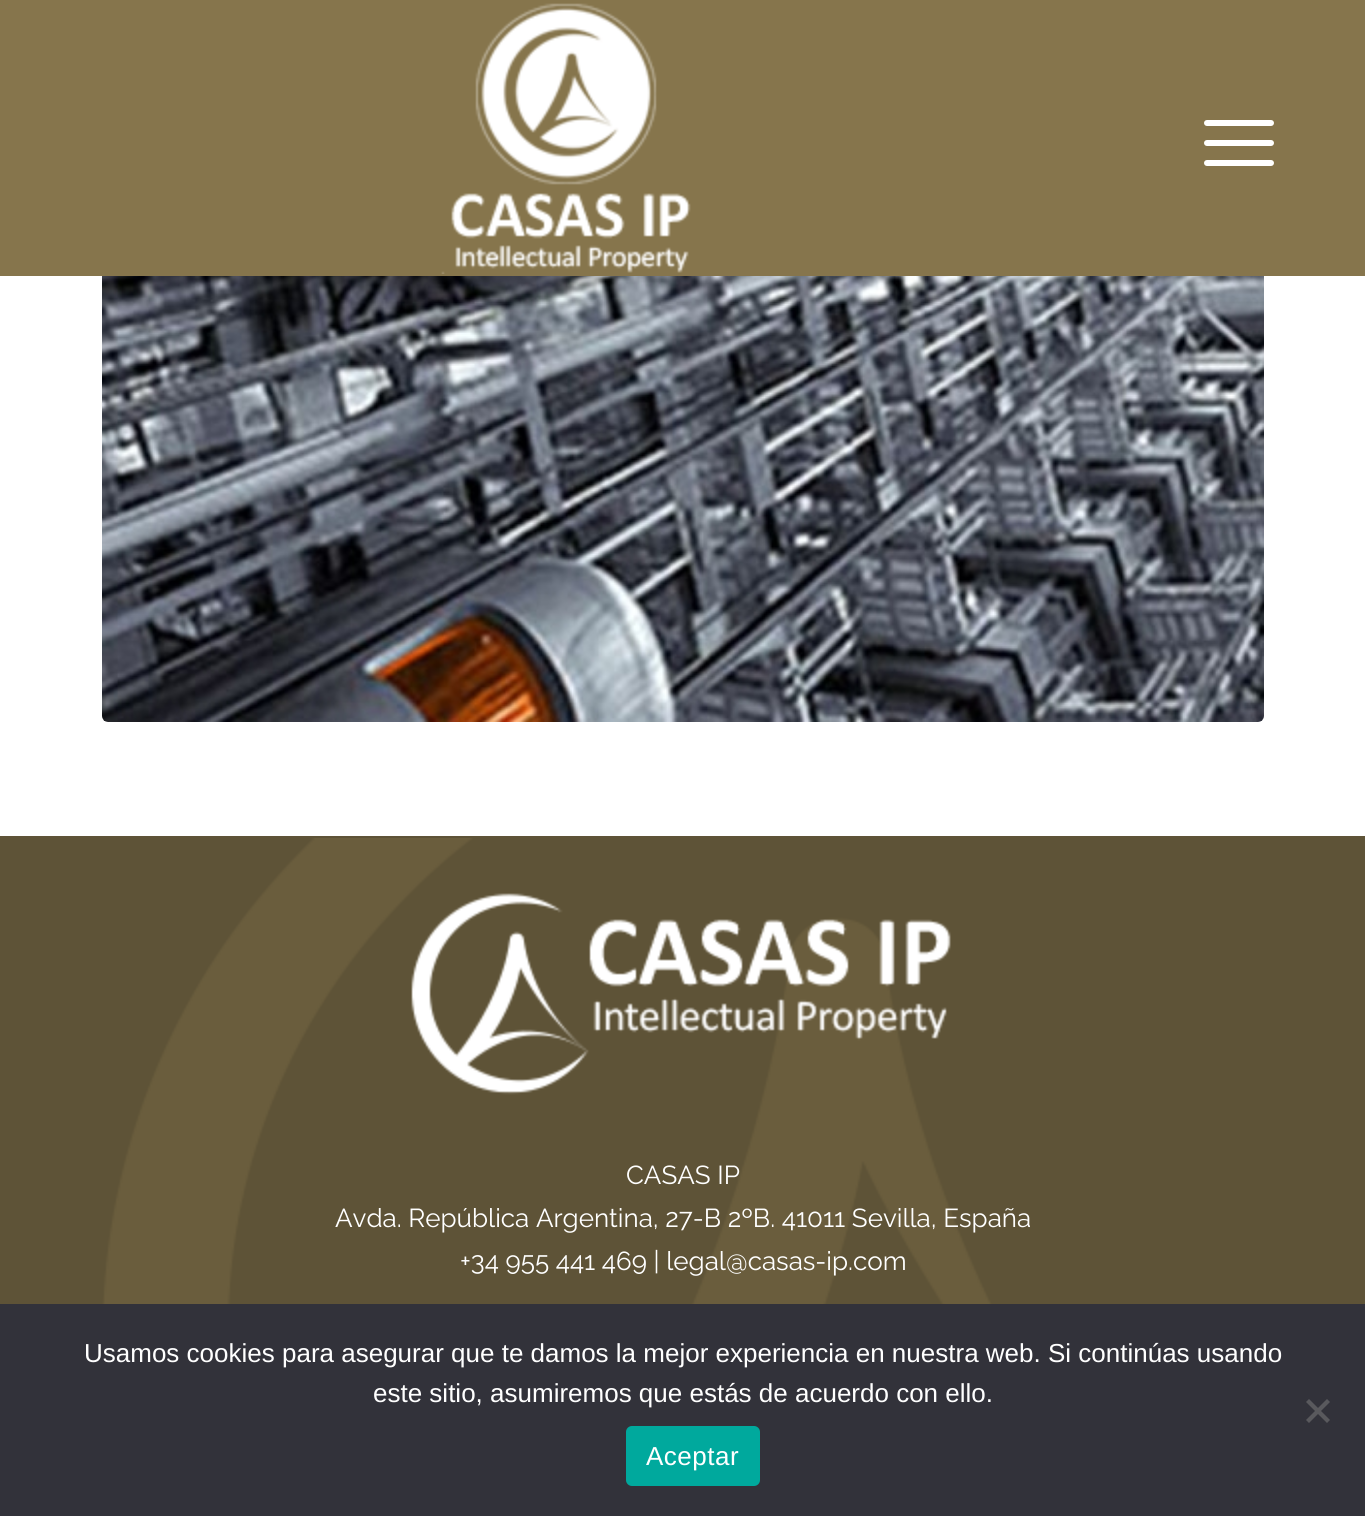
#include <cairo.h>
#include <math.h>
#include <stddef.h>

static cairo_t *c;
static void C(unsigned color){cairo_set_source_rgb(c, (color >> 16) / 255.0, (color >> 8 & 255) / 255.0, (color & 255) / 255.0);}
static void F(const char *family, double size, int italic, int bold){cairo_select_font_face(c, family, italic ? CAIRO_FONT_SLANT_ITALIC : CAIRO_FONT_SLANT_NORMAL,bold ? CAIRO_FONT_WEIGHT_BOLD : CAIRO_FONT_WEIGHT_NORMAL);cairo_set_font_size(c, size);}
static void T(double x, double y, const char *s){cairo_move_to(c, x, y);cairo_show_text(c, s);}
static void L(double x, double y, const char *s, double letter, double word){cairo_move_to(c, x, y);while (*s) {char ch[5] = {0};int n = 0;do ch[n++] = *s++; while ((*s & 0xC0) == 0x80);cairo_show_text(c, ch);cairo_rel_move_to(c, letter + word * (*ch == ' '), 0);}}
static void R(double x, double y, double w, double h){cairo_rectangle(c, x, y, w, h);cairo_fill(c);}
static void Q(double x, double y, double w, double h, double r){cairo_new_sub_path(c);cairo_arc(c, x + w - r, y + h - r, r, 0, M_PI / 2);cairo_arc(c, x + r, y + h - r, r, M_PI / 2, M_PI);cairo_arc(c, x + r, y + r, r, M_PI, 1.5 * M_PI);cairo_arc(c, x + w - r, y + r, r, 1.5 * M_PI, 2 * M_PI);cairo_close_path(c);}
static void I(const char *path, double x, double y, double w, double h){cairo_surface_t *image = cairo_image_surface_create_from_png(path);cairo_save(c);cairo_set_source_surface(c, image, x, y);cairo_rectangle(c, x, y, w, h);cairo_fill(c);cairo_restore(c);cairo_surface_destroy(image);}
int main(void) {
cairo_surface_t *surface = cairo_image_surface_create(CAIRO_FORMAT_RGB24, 1365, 1516);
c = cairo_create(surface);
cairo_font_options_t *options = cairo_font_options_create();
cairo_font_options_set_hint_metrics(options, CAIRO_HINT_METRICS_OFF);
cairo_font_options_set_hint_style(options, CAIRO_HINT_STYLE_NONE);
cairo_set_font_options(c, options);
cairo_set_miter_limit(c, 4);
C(0xffffff);
cairo_paint(c);
C(0x86754c);
R(0,0,1365,276);
I("1.png",441,3,250,271);
C(0xffffff);
Q(1204,140,70,6,3);
cairo_fill(c);
Q(1204,120,70,6,3);
cairo_fill(c);
Q(1204,160,70,6,3);
cairo_fill(c);
I("2.png",102,276,1162,446);
C(0x5e5337);
R(0,836,1365,468);
I("3.png",102,838,1016,466);
I("4.png",411,893,540,202);
F("Raleway Thin",26,0,0);
C(0xffffff);
T(626,1184,"CASAS IP");
T(335,1227,"Avda. República Argentina, 27-B 2ºB. 41011 Sevilla, España");
T(460,1270,"+34 955 441 469 | legal@casas-ip.com");
C(0x32323a);
R(0,1304,1365,212);
F("Liberation Sans",26,0,0);
C(0xffffff);
T(84,1362,"Usamos cookies para asegurar que te damos la mejor experiencia en nuestra web. Si continúas usando");
T(373,1402,"este sitio, asumiremos que estás de acuerdo con ello.");
C(0x59595d);
cairo_new_path(c);
cairo_move_to(c,1327,1399);
cairo_line_to(c,1330,1402);
cairo_line_to(c,1309,1423);
cairo_line_to(c,1306,1420);
cairo_close_path(c);
cairo_fill(c);
cairo_new_path(c);
cairo_move_to(c,1306,1402);
cairo_line_to(c,1309,1399);
cairo_line_to(c,1330,1420);
cairo_line_to(c,1327,1423);
cairo_close_path(c);
cairo_fill(c);
C(0x00a99d);
Q(626,1426,134,60,6);
cairo_fill(c);
C(0xffffff);
L(646,1465,"Aceptar",.5,0);
cairo_surface_write_to_png(surface, "o.png");
cairo_font_options_destroy(options);
cairo_destroy(c);
cairo_surface_destroy(surface);
return 0;
}
